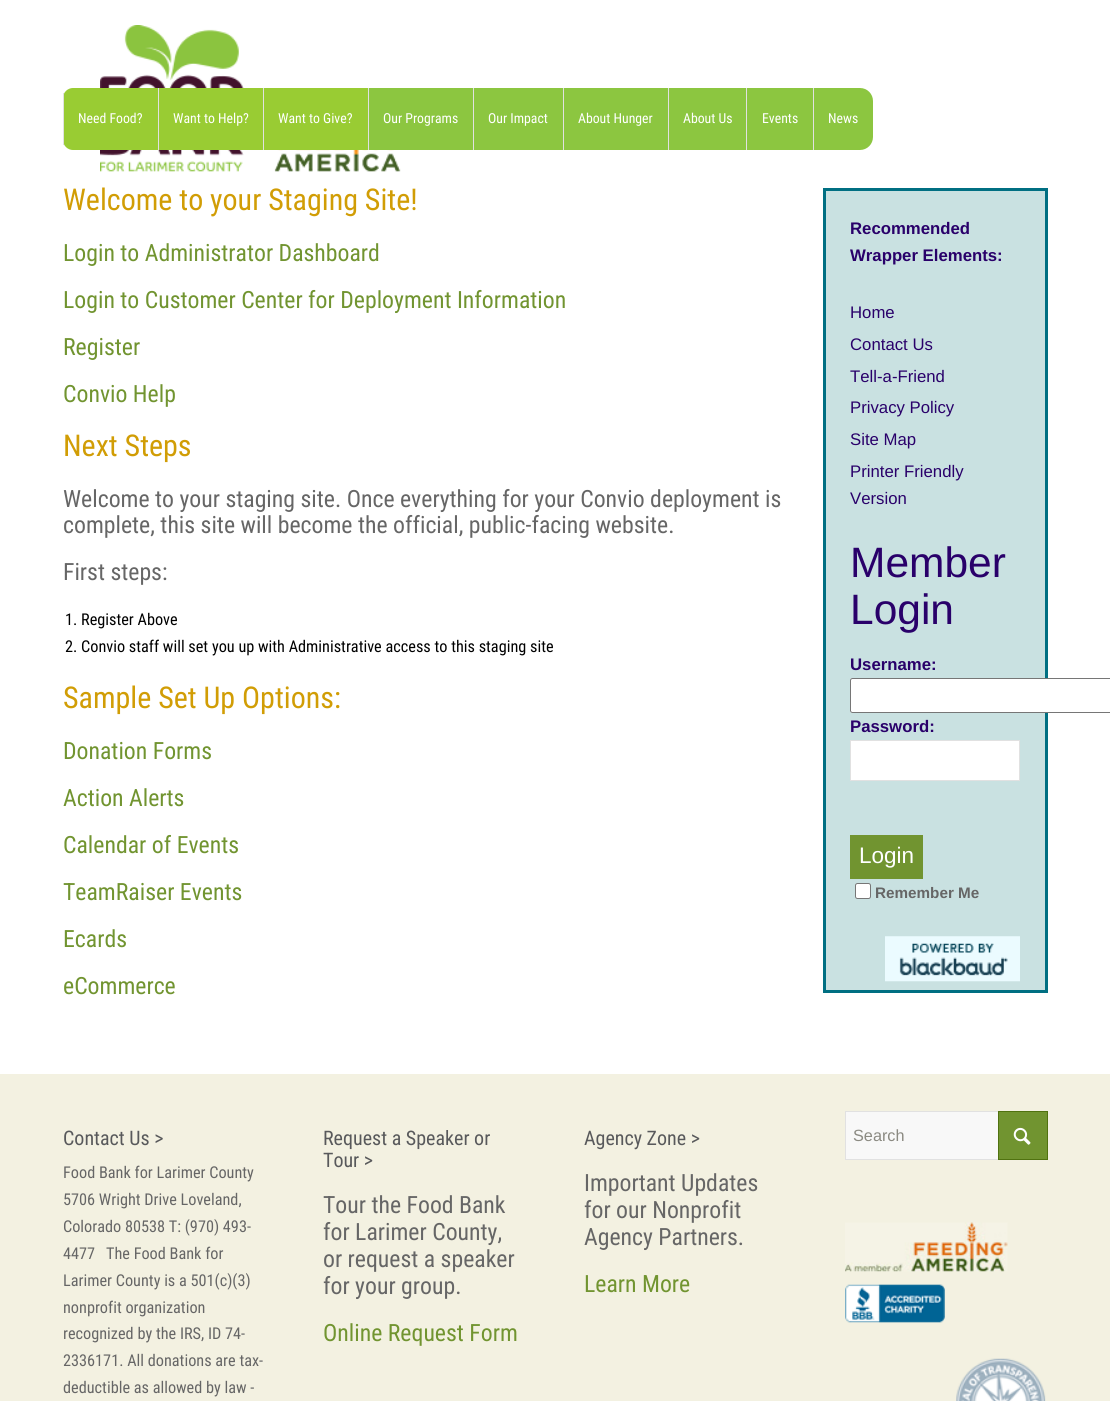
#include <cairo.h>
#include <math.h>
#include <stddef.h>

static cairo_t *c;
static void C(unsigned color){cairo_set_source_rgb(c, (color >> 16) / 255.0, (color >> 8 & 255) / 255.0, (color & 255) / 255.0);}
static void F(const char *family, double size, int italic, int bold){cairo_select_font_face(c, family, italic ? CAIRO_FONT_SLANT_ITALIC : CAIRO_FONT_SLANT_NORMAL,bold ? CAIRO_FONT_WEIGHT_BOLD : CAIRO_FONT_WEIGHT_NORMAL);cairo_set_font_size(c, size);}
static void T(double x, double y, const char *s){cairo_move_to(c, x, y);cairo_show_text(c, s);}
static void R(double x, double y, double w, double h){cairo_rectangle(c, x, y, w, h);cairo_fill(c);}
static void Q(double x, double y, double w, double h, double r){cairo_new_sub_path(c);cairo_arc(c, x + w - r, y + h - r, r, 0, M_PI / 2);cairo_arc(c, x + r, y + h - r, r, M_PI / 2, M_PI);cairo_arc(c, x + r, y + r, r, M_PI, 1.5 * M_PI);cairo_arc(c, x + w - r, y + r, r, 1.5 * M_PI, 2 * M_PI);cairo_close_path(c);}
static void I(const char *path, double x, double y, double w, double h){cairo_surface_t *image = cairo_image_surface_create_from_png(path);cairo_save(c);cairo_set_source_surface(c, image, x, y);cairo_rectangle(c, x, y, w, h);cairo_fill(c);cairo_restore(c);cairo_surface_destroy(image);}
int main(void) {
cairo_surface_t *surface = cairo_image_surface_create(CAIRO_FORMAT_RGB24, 1110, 1401);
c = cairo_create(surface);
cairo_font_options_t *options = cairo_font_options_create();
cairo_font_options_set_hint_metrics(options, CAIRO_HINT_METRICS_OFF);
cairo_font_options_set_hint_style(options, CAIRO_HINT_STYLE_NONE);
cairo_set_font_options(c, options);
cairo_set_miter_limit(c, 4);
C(0xffffff);
cairo_paint(c);
I("1.png",100,25,304,147);
C(0x8cc640);
Q(63,88,810,62,13);
cairo_fill(c);
C(0x99cc33);
cairo_new_path(c);
cairo_move_to(c,73,88);
cairo_line_to(c,158,88);
cairo_line_to(c,158,150);
cairo_line_to(c,73,150);
cairo_curve_to(c,67.5,150,63,145.5,63,140);
cairo_line_to(c,63,98);
cairo_curve_to(c,63,92.5,67.5,88,73,88);
cairo_close_path(c);
cairo_fill(c);
C(0xe1e1e1);
R(63,93,1,52);
F("Roboto Condensed",13.75,0,0);
C(0xffffff);
T(78,123,"Need Food?");
C(0x99cc33);
R(159,88,104,62);
C(0xe1e1e1);
R(158,88,1,62);
C(0xffffff);
T(173,123,"Want to Help?");
C(0x99cc33);
R(264,88,104,62);
C(0xe1e1e1);
R(263,88,1,62);
C(0xffffff);
T(278,123,"Want to Give?");
C(0xe1e1e1);
R(368,88,1,62);
C(0xffffff);
T(383,123,"Our Programs");
C(0xe1e1e1);
R(473,88,1,62);
C(0xffffff);
T(488,123,"Our Impact");
C(0xe1e1e1);
R(563,88,1,62);
C(0xffffff);
T(578,123,"About Hunger");
C(0xe1e1e1);
R(668,88,1,62);
C(0xffffff);
T(683,123,"About Us");
C(0xe1e1e1);
R(746,88,1,62);
C(0xffffff);
T(762,123,"Events");
C(0xe1e1e1);
R(813,88,1,62);
C(0xffffff);
T(828,123,"News");
F("Roboto Condensed",30,0,0);
C(0xd19d05);
T(63,210,"Welcome to your Staging Site!");
F("Roboto Condensed",23.75,0,0);
C(0x719430);
T(63,261,"Login to Administrator Dashboard");
C(0xc9e1e1);
cairo_rectangle(c,824.5,189.5,222,802);
cairo_fill_preserve(c);
C(0x006f82);
cairo_set_line_width(c,3);
cairo_stroke(c);
F("Liberation Sans",16.75,0,1);
C(0x29006a);
T(850,234,"Recommended");
T(850,261,"Wrapper Elements:");
F("Liberation Sans",16.75,0,0);
T(850,318,"Home");
T(850,350,"Contact Us");
T(850,382,"Tell-a-Friend");
T(850,413,"Privacy Policy");
T(850,445,"Site Map");
T(850,477,"Printer Friendly");
T(850,504,"Version");
F("Liberation Sans",42.5,0,0);
T(850,577,"Member");
T(850,624,"Login");
F("Liberation Sans",16.75,0,1);
T(850,670,"Username:");
C(0xffffff);
cairo_new_path(c);
cairo_move_to(c,852.5,678);
cairo_line_to(c,1110,678);
cairo_line_to(c,1110,713);
cairo_line_to(c,852.5,713);
cairo_curve_to(c,851,713,850,712,850,710.5);
cairo_line_to(c,850,680.5);
cairo_curve_to(c,850,679,851,678,852.5,678);
cairo_close_path(c);
cairo_fill(c);
Q(850.5,678.5,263,34,2);
C(0x767676);
cairo_set_line_width(c,1);
cairo_stroke(c);
C(0x29006a);
T(850,732,"Password:");
C(0xffffff);
cairo_rectangle(c,850.5,740.5,169,40);
cairo_fill_preserve(c);
C(0xe1e1e1);
cairo_stroke(c);
C(0x719430);
R(850,835,73,44);
F("Liberation Sans",22.5,0,0);
C(0xffffff);
T(859,863,"Login");
Q(855.5,883.5,15,15,2);
cairo_fill_preserve(c);
C(0x767676);
cairo_stroke(c);
F("Liberation Sans",15.25,0,1);
C(0x666666);
T(875,898,"Remember Me");
I("2.png",885,936,135,46);
F("Roboto Condensed",23.75,0,0);
C(0x719430);
T(63,308,"Login to Customer Center for Deployment Information");
T(63,355,"Register");
T(63,402,"Convio Help");
F("Roboto Condensed",30,0,0);
C(0xd19d05);
T(63,456,"Next Steps");
F("Roboto Condensed",23.75,0,0);
C(0x666666);
T(63,507,"Welcome to your staging site. Once everything for your Convio deployment is");
T(63,533,"complete, this site will become the official, public-facing website.");
T(63,580,"First steps:");
F("Roboto Condensed",16.25,0,0);
C(0x000000);
T(65,625,"1. Register Above");
T(65,652,"2. Convio staff will set you up with Administrative access to this staging site");
F("Roboto Condensed",30,0,0);
C(0xd19d05);
T(63,708,"Sample Set Up Options:");
F("Roboto Condensed",23.75,0,0);
C(0x719430);
T(63,759,"Donation Forms");
T(63,806,"Action Alerts");
T(63,853,"Calendar of Events");
T(63,900,"TeamRaiser Events");
T(63,947,"Ecards");
T(63,994,"eCommerce");
C(0xf3f1e1);
R(0,1074,1110,327);
F("Roboto Condensed",20,0,0);
C(0x58595b);
T(63,1145,"Contact Us >");
F("Roboto Condensed",16.25,0,0);
C(0x666666);
T(63,1178,"Food Bank for Larimer County");
T(63,1205,"5706 Wright Drive Loveland,");
T(63,1232,"Colorado 80538 T: (970) 493-");
T(63,1259,"4477");
T(106,1259,"The Food Bank for");
T(63,1286,"Larimer County is a 501(c)(3)");
T(63,1313,"nonprofit organization");
T(63,1339,"recognized by the IRS, ID 74-");
T(63,1366,"2336171. All donations are tax-");
T(63,1393,"deductible as allowed by law -");
F("Roboto Condensed",20,0,0);
C(0x58595b);
T(323,1145,"Request a Speaker or");
T(323,1167,"Tour >");
F("Roboto Condensed",23.75,0,0);
C(0x666666);
T(323,1213,"Tour the Food Bank");
T(323,1240,"for Larimer County,");
T(323,1267,"or request a speaker");
T(323,1294,"for your group.");
C(0x719430);
T(323,1341,"Online Request Form");
F("Roboto Condensed",20,0,0);
C(0x58595b);
T(584,1145,"Agency Zone >");
F("Roboto Condensed",23.75,0,0);
C(0x666666);
T(584,1191,"Important Updates");
T(584,1218,"for our Nonprofit");
T(584,1245,"Agency Partners.");
C(0x719430);
T(584,1292,"Learn More");
C(0xf8f8f8);
R(846,1112,152,47);
cairo_rectangle(c,845.5,1111.5,202,48);
C(0xe1e1e1);
cairo_stroke(c);
F("Liberation Sans",16.25,0,0);
C(0x8b8a82);
T(853,1141,"Search");
C(0x719430);
cairo_rectangle(c,998.5,1111.5,49,48);
cairo_fill_preserve(c);
C(0x507210);
cairo_stroke(c);
I("3.png",1013,1127,18,18);
I("4.png",845,1222,163,50);
I("5.png",845,1284,100,39);
I("6.png",956,1358,90,43);
cairo_surface_write_to_png(surface, "o.png");
cairo_font_options_destroy(options);
cairo_destroy(c);
cairo_surface_destroy(surface);
return 0;
}
